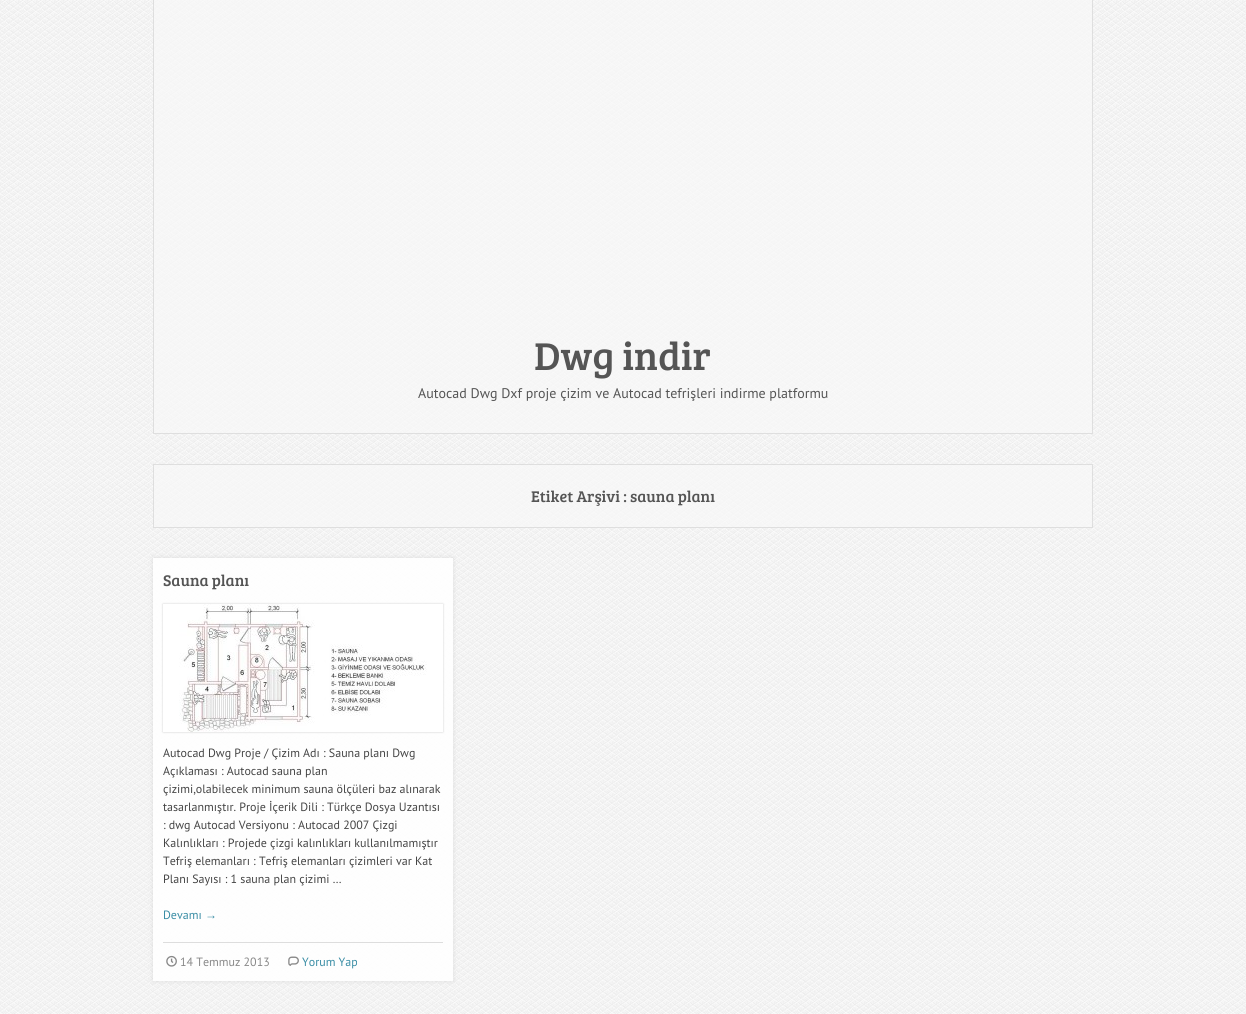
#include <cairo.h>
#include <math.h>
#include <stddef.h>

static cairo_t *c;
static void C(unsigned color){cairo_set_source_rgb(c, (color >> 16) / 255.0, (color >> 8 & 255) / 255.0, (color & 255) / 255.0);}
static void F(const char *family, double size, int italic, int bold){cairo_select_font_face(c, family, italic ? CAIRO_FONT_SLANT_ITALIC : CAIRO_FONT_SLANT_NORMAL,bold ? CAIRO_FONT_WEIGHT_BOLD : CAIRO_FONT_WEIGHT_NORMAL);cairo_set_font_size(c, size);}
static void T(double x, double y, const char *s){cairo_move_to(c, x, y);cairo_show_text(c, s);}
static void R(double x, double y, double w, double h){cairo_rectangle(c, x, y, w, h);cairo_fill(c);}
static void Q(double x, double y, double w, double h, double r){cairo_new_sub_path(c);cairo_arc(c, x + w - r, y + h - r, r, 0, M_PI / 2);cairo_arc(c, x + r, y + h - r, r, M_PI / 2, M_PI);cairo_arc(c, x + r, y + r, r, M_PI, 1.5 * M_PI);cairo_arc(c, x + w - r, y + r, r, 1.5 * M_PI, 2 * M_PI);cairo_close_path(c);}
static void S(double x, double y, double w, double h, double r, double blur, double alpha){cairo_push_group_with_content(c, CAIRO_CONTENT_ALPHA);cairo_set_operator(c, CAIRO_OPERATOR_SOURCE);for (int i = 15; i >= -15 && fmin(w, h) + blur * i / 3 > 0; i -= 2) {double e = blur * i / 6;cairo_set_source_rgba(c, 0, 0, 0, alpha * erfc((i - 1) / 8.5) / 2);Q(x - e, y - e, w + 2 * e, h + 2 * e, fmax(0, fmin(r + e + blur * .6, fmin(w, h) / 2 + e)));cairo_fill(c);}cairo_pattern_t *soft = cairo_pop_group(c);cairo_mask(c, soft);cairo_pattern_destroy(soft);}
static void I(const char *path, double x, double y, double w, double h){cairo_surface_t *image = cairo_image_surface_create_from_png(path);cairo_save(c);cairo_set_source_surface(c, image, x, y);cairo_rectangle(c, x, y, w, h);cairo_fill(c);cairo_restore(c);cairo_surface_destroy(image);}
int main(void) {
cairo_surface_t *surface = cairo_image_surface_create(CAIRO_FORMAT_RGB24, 1246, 1014);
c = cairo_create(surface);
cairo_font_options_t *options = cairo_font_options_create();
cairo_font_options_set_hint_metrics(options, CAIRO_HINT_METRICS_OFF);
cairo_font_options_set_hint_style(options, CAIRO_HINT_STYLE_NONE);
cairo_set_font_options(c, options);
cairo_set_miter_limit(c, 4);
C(0xffffff);
cairo_paint(c);
I("1.png",0,0,1246,1014);
cairo_set_source_rgba(c,0.973,0.973,0.973,0.7);
R(153,0,940,434);
cairo_rectangle(c,153.5,-.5,939,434);
cairo_set_source_rgba(c,0,0,0,0.1);
cairo_set_line_width(c,1);
cairo_stroke(c);
F("Bree Serif",40,0,0);
C(0x555555);
T(534,370,"Dwg indir");
F("PT Sans",14,0,0);
T(418,398,"Autocad Dwg Dxf proje çizim ve Autocad tefrişleri indirme platformu");
cairo_set_source_rgba(c,0.973,0.973,0.973,0.7);
R(153,464,940,64);
cairo_rectangle(c,153.5,464.5,939,63);
cairo_set_source_rgba(c,0,0,0,0.1);
cairo_stroke(c);
F("Bree Serif",16,0,0);
C(0x555555);
T(531,502,"Etiket Arşivi : sauna planı");
cairo_save(c);
cairo_set_fill_rule(c,CAIRO_FILL_RULE_EVEN_ODD);
cairo_new_path(c);
cairo_move_to(c,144,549);
cairo_line_to(c,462,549);
cairo_line_to(c,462,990);
cairo_line_to(c,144,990);
cairo_close_path(c);
cairo_move_to(c,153,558);
cairo_line_to(c,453,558);
cairo_line_to(c,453,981);
cairo_line_to(c,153,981);
cairo_close_path(c);
cairo_clip(c);
C(0x000000);
S(153,558,300,423,0,2.5,.1);
cairo_restore(c);
cairo_set_source_rgba(c,1,1,1,0.9);
R(153,558,300,423);
C(0x555555);
T(163,586,"Sauna planı");
C(0x000000);
S(163,604,280,128,0,1,.2);
I("2.png",163,604,280,128);
F("PT Sans",12,0,0);
C(0x444444);
T(163,757,"Autocad Dwg Proje / Çizim Adı : Sauna planı Dwg");
T(163,775,"Açıklaması : Autocad sauna plan");
T(163,793,"çizimi,olabilecek minimum sauna ölçüleri baz alınarak");
T(163,811,"tasarlanmıştır. Proje İçerik Dili : Türkçe Dosya Uzantısı");
T(163,829,": dwg Autocad Versiyonu : Autocad 2007 Çizgi");
T(163,847,"Kalınlıkları : Projede çizgi kalınlıkları kullanılmamıştır");
T(163,865,"Tefriş elemanları : Tefriş elemanları çizimleri var Kat");
T(163,883,"Planı Sayısı : 1 sauna plan çizimi …");
C(0x388ca4);
T(163,919,"Devamı");
F("Liberation Sans",12,0,0);
T(205,919,"→");
C(0xdddddd);
R(163,942,280,1);
I("3.png",166,955,11,12);
F("PT Sans",12,0,0);
C(0x888888);
T(180,966,"14 Temmuz 2013");
I("4.png",288,956,11,10);
C(0x388ca4);
T(302,966,"Yorum Yap");
cairo_surface_write_to_png(surface, "o.png");
cairo_font_options_destroy(options);
cairo_destroy(c);
cairo_surface_destroy(surface);
return 0;
}
